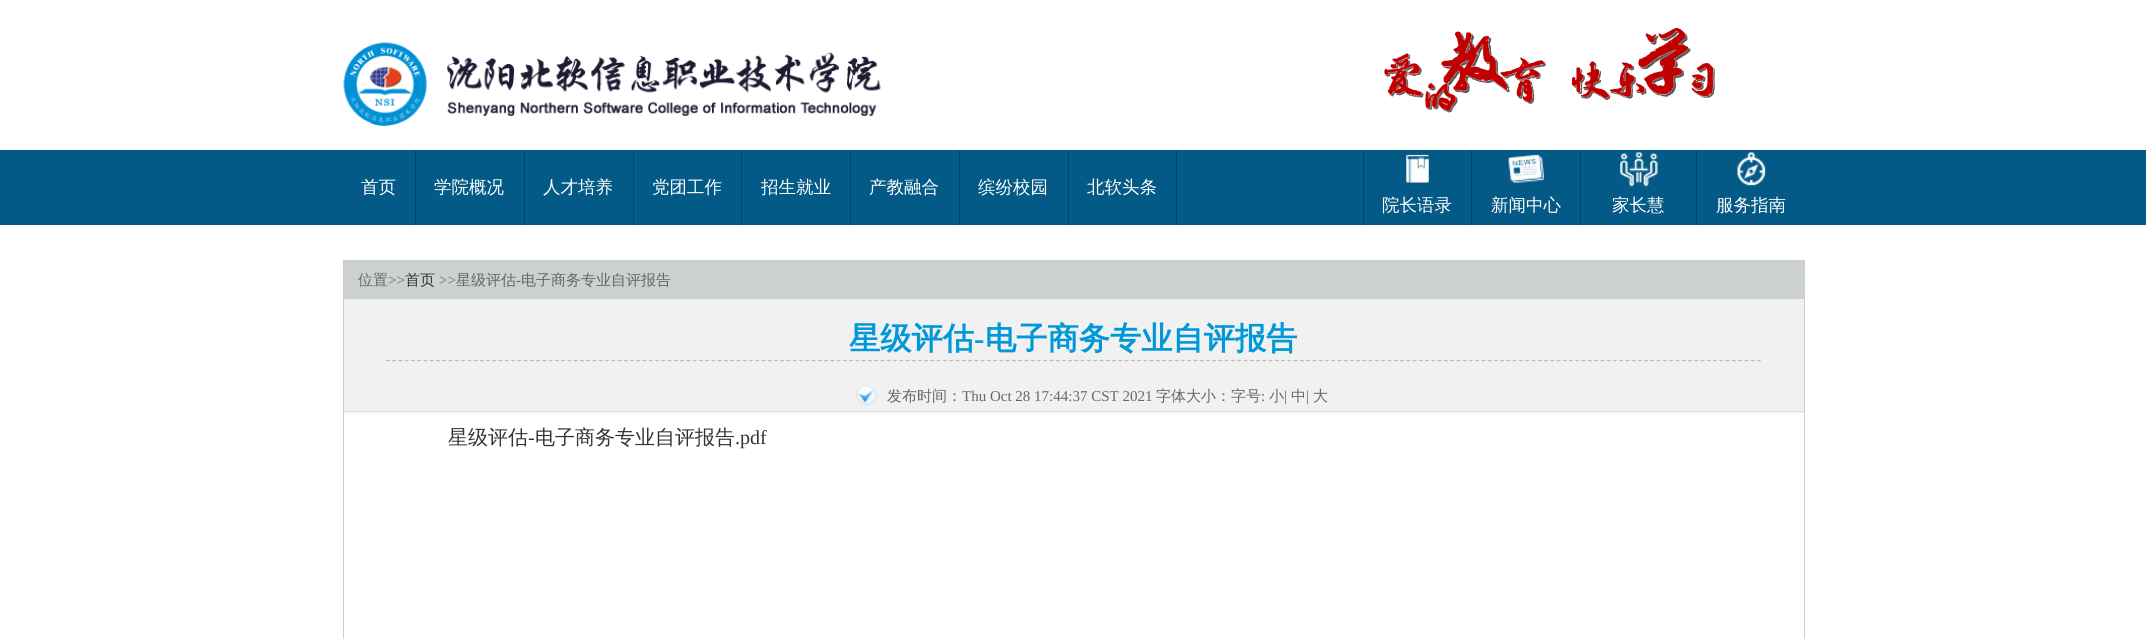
#include <cairo.h>
#include <math.h>
#include <stddef.h>

static cairo_t *c;
static void C(unsigned color){cairo_set_source_rgb(c, (color >> 16) / 255.0, (color >> 8 & 255) / 255.0, (color & 255) / 255.0);}
static void F(const char *family, double size, int italic, int bold){cairo_select_font_face(c, family, italic ? CAIRO_FONT_SLANT_ITALIC : CAIRO_FONT_SLANT_NORMAL,bold ? CAIRO_FONT_WEIGHT_BOLD : CAIRO_FONT_WEIGHT_NORMAL);cairo_set_font_size(c, size);}
static void T(double x, double y, const char *s){cairo_move_to(c, x, y);cairo_show_text(c, s);}
static void R(double x, double y, double w, double h){cairo_rectangle(c, x, y, w, h);cairo_fill(c);}
static void I(const char *path, double x, double y, double w, double h){cairo_surface_t *image = cairo_image_surface_create_from_png(path);cairo_save(c);cairo_set_source_surface(c, image, x, y);cairo_rectangle(c, x, y, w, h);cairo_fill(c);cairo_restore(c);cairo_surface_destroy(image);}
int main(void) {
cairo_surface_t *surface = cairo_image_surface_create(CAIRO_FORMAT_RGB24, 2146, 639);
c = cairo_create(surface);
cairo_font_options_t *options = cairo_font_options_create();
cairo_font_options_set_hint_metrics(options, CAIRO_HINT_METRICS_OFF);
cairo_font_options_set_hint_style(options, CAIRO_HINT_STYLE_NONE);
cairo_set_font_options(c, options);
cairo_set_miter_limit(c, 4);
C(0xffffff);
cairo_paint(c);
I("1.png",343,42,538,84);
I("2.png",1384,27,331,86);
C(0x035a86);
R(0,150,2146,75);
F("WenQuanYi Zen Hei Medium",17.5,0,0);
C(0xffffff);
T(361,193,"首页");
C(0x073f74);
R(415,150,1,75);
C(0xffffff);
T(434,193,"学院概况");
C(0x073f74);
R(524,150,1,75);
C(0xffffff);
T(543,193,"人才培养");
C(0x073f74);
R(633,150,1,75);
C(0xffffff);
T(652,193,"党团工作");
C(0x073f74);
R(741,150,1,75);
C(0xffffff);
T(761,193,"招生就业");
C(0x073f74);
R(850,150,1,75);
C(0xffffff);
T(869,193,"产教融合");
C(0x073f74);
R(959,150,1,75);
C(0xffffff);
T(978,193,"缤纷校园");
C(0x073f74);
R(1068,150,1,75);
C(0xffffff);
T(1087,193,"北软头条");
C(0x073f74);
R(1176,150,1,75);
R(1363,150,1,75);
I("3.png",1406,154,23,29);
C(0xffffff);
T(1382,211,"院长语录");
C(0x073f74);
R(1471,150,1,75);
I("4.png",1508,154,36,29);
C(0xffffff);
T(1491,211,"新闻中心");
C(0x073f74);
R(1580,150,1,75);
I("5.png",1620,152,38,35);
C(0xffffff);
T(1612,211,"家长慧");
C(0x073f74);
R(1696,150,1,75);
I("6.png",1737,152,29,34);
C(0xffffff);
T(1716,211,"服务指南");
cairo_rectangle(c,343.5,260.5,1461,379);
C(0xcccccc);
cairo_set_line_width(c,1);
cairo_stroke(c);
C(0xcdd0d1);
R(344,261,1460,38);
F("WenQuanYi Zen Hei Medium",15,0,0);
C(0x666666);
T(358,285,"位置");
F("Liberation Serif",15,0,0);
T(388,285,">>");
F("WenQuanYi Zen Hei Medium",15,0,0);
C(0x333333);
T(405,285,"首页");
F("Liberation Serif",15,0,0);
C(0x666666);
T(439,285,">>");
F("WenQuanYi Zen Hei Medium",15,0,0);
T(456,285,"星级评估");
F("Liberation Serif",15,0,0);
T(516,285,"-");
F("WenQuanYi Zen Hei Medium",15,0,0);
T(521,285,"电子商务专业自评报告");
C(0xf1f1f1);
R(344,299,1460,114);
C(0xdddddd);
R(344,411,1460,1);
F("WenQuanYi Zen Hei",31.25,0,1);
C(0x0098d8);
T(849,349,"星级评估");
F("Liberation Serif",31.25,0,1);
T(974,349,"-");
F("WenQuanYi Zen Hei",31.25,0,1);
T(985,349,"电子商务专业自评报告");
cairo_new_path(c);
cairo_move_to(c,386,360.5);
cairo_line_to(c,1761,360.5);
C(0xbbbbbb);
cairo_set_line_width(c,1.2);
cairo_set_dash(c,(double[]){3.75,2.51},2,0);
cairo_stroke(c);
I("7.png",856,385,21,20);
F("WenQuanYi Zen Hei Medium",15,0,0);
C(0x666666);
T(887,401,"发布时间：");
F("Liberation Serif",15,0,0);
T(962,401,"Thu Oct 28 17:44:37 CST 2021");
F("WenQuanYi Zen Hei Medium",15,0,0);
T(1156,401,"字体大小：字号");
F("Liberation Serif",15,0,0);
T(1261,401,":");
F("WenQuanYi Zen Hei Medium",15,0,0);
T(1269,401,"小");
F("Liberation Serif",15,0,0);
T(1284,401,"|");
F("WenQuanYi Zen Hei Medium",15,0,0);
T(1291,401,"中");
F("Liberation Serif",15,0,0);
T(1306,401,"|");
F("WenQuanYi Zen Hei Medium",15,0,0);
T(1313,401,"大");
F("WenQuanYi Zen Hei Medium",20,0,0);
C(0x333333);
T(448,444,"星级评估");
F("Liberation Serif",20,0,0);
T(528,444,"-");
F("WenQuanYi Zen Hei Medium",20,0,0);
T(535,444,"电子商务专业自评报告");
F("Liberation Serif",20,0,0);
T(735,444,".pdf");
cairo_surface_write_to_png(surface, "o.png");
cairo_font_options_destroy(options);
cairo_destroy(c);
cairo_surface_destroy(surface);
return 0;
}
